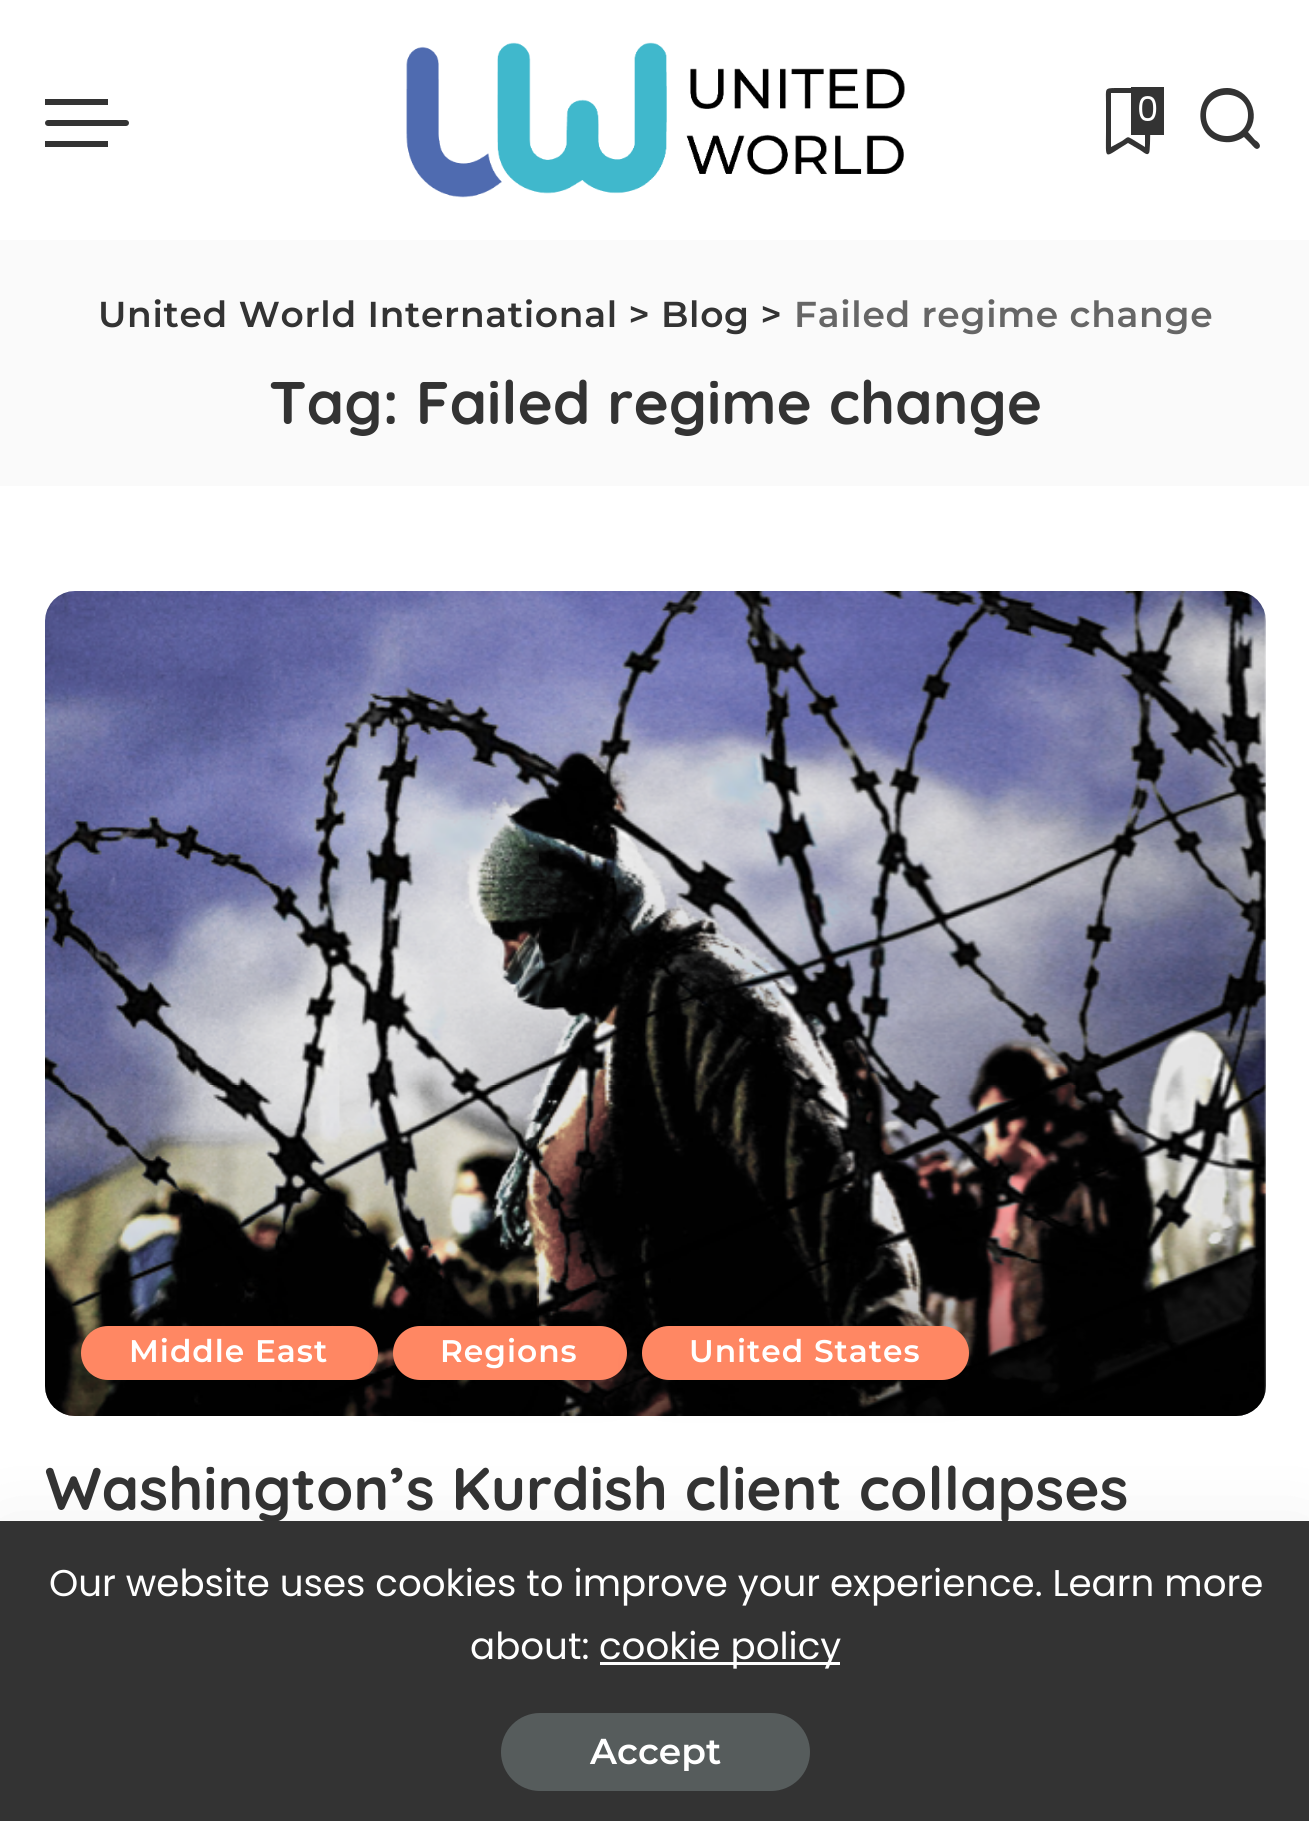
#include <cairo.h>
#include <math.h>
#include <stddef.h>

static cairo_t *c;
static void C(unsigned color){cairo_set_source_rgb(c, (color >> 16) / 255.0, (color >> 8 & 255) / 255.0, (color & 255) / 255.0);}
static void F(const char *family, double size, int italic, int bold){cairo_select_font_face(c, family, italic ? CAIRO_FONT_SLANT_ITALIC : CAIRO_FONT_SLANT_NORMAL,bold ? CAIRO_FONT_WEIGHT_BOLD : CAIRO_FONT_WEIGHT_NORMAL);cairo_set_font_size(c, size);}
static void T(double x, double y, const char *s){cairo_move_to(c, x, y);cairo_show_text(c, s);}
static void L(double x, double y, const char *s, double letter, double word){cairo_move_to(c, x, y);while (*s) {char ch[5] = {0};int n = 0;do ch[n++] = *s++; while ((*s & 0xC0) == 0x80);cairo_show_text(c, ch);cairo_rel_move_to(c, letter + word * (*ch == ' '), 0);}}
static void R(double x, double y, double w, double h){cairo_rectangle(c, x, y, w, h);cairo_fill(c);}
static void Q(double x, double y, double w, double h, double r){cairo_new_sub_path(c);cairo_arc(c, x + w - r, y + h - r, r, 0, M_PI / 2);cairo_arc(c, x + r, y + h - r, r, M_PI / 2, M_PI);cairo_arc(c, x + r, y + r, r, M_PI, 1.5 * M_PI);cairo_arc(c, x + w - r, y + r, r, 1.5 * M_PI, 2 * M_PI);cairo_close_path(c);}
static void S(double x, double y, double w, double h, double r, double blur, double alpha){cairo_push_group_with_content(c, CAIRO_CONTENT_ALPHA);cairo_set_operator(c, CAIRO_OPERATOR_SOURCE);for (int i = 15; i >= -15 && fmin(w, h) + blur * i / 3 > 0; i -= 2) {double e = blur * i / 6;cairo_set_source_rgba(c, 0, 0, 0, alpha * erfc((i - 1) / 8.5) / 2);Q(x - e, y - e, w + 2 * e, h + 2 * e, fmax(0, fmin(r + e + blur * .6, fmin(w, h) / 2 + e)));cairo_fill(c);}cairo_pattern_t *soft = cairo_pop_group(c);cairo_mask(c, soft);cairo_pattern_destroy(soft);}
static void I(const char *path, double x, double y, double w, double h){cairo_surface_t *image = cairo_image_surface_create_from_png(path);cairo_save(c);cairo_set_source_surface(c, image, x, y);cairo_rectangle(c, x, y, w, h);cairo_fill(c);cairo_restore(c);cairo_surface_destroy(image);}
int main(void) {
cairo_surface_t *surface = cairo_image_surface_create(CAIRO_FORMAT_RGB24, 1309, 1821);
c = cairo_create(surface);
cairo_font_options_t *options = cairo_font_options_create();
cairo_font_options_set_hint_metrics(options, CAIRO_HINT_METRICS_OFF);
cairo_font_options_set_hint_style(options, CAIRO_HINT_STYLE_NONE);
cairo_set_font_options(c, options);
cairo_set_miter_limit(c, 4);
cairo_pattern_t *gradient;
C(0xffffff);
cairo_paint(c);
C(0x333333);
Q(45,120,84,6,3);
cairo_fill(c);
R(45,99,63,6);
R(45,141,63,6);
I("1.png",406,42,499,156);
cairo_new_path(c);
cairo_move_to(c,1145,88);
cairo_line_to(c,1116,88);
cairo_curve_to(c,1104,88,1106,89,1106,102);
cairo_line_to(c,1106,132);
cairo_curve_to(c,1106,162,1103,158,1128,143);
cairo_line_to(c,1140,150);
cairo_curve_to(c,1142,151,1146,155,1148,154);
cairo_line_to(c,1149,153);
cairo_curve_to(c,1151,151,1150,99,1150,92);
cairo_curve_to(c,1150,90,1148,88,1145,88);
cairo_close_path(c);
cairo_move_to(c,1145,147);
cairo_line_to(c,1132,139);
cairo_curve_to(c,1127,136,1128,137,1122,141);
cairo_line_to(c,1111,147);
cairo_line_to(c,1111,93);
cairo_line_to(c,1145,93);
cairo_close_path(c);
cairo_fill(c);
R(1131,87,33,48);
F("Poppins",34,0,0);
C(0xffffff);
T(1137,121,"0");
C(0x333333);
cairo_new_path(c);
cairo_move_to(c,1206,115);
cairo_curve_to(c,1206,88,1248,88,1248,115);
cairo_curve_to(c,1248,143,1206,143,1206,115);
cairo_close_path(c);
cairo_move_to(c,1227,88);
cairo_curve_to(c,1193,88,1191,139,1224,142);
cairo_curve_to(c,1231,143,1238,141,1244,137);
cairo_line_to(c,1251,144);
cairo_curve_to(c,1253,146,1256,151,1259,148);
cairo_curve_to(c,1262,145,1257,141,1255,140);
cairo_line_to(c,1248,132);
cairo_curve_to(c,1262,115,1249,88,1227,88);
cairo_close_path(c);
cairo_fill(c);
C(0xfafafa);
R(0,240,1309,246);
F("Montserrat SemiBold",36,0,0);
C(0x333333);
L(98,327,"United World International > Blog >",.7,0);
C(0x666666);
L(794,327,"Failed regime change",.7,0);
F("Quicksand",60,0,1);
C(0x333333);
T(269,424,"Tag: Failed regime change");
I("2.png",45,591,1221,825);
gradient = cairo_pattern_create_linear(656,1266,656,1416);
cairo_pattern_add_color_stop_rgba(gradient,0,0,0,0,0);
cairo_pattern_add_color_stop_rgba(gradient,1,0,0,0,.5);
cairo_set_source(c,gradient);
cairo_pattern_destroy(gradient);
cairo_new_path(c);
cairo_move_to(c,45,1266);
cairo_line_to(c,1266,1266);
cairo_line_to(c,1266,1386);
cairo_curve_to(c,1266,1402.5,1252.5,1416,1236,1416);
cairo_line_to(c,75,1416);
cairo_curve_to(c,58.5,1416,45,1402.5,45,1386);
cairo_close_path(c);
cairo_fill(c);
C(0xff8763);
Q(81,1326,297,54,27);
cairo_fill(c);
F("Montserrat SemiBold",31.25,0,0);
C(0xffffff);
L(129,1362,"Middle East",1,0);
C(0x000000);
S(396,1341,234,54,27,15,.1);
C(0xff8763);
Q(393,1326,234,54,27);
cairo_fill(c);
C(0xffffff);
L(440,1362,"Regions",1,0);
C(0x000000);
S(645,1341,327,54,27,15,.1);
C(0xff8763);
Q(642,1326,327,54,27);
cairo_fill(c);
C(0xffffff);
L(689,1362,"United States",1,0);
F("Quicksand",60,0,1);
C(0x333333);
T(45,1510,"Washington’s Kurdish client collapses");
C(0x000000);
S(0,1533,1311,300,0,45,.07);
C(0x333333);
R(0,1521,1309,300);
F("Poppins",37.2,0,0);
C(0xffffff);
T(49,1596,"Our website uses cookies to improve your experience. Learn more");
T(470,1659,"about:");
R(600,1662,240,3);
T(599,1659,"cookie policy");
C(0x565c5c);
Q(501,1713,309,78,39);
cairo_fill(c);
F("Montserrat SemiBold",36,0,0);
C(0xffffff);
T(590,1764,"Accept");
cairo_surface_write_to_png(surface, "o.png");
cairo_font_options_destroy(options);
cairo_destroy(c);
cairo_surface_destroy(surface);
return 0;
}
